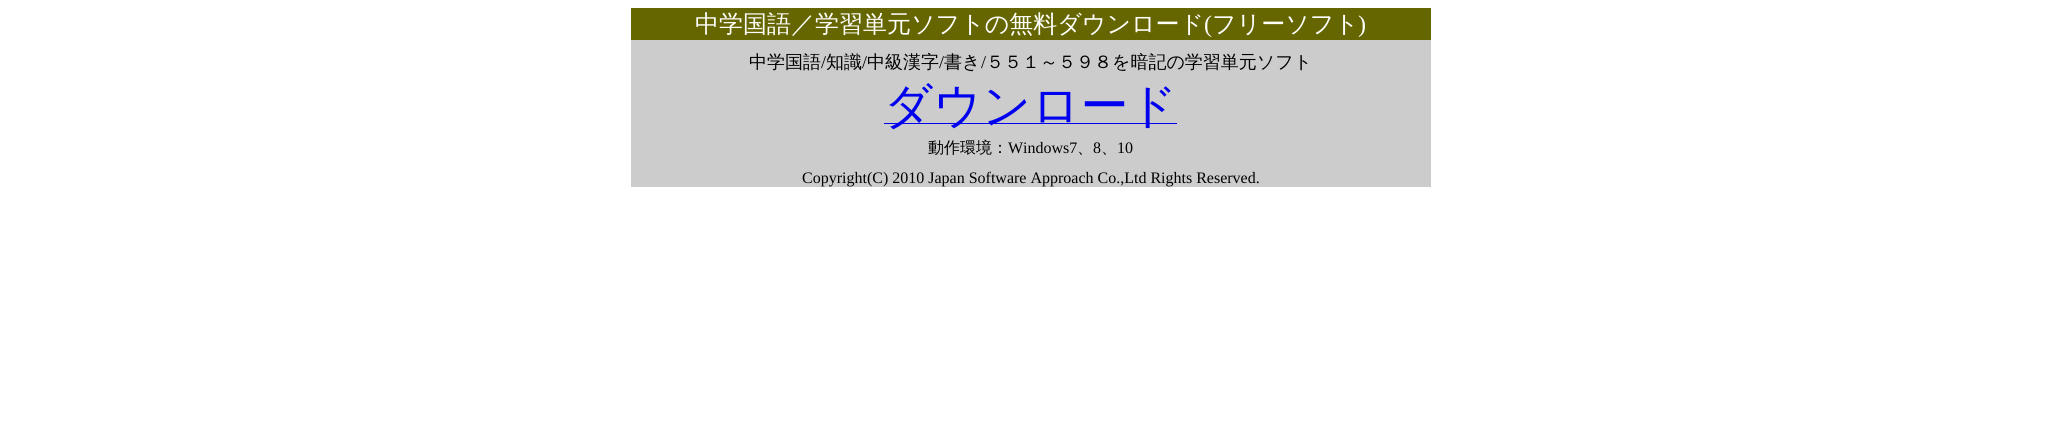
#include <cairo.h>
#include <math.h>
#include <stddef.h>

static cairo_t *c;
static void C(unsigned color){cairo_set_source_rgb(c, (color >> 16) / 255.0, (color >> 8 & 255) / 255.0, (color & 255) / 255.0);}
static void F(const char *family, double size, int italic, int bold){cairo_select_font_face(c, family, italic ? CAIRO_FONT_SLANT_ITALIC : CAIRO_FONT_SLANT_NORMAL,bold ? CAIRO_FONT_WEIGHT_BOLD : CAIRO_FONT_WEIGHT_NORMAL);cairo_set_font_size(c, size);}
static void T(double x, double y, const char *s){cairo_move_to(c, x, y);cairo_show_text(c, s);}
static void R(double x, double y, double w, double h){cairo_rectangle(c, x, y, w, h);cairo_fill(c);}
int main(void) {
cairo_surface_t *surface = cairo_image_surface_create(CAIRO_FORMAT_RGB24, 2061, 445);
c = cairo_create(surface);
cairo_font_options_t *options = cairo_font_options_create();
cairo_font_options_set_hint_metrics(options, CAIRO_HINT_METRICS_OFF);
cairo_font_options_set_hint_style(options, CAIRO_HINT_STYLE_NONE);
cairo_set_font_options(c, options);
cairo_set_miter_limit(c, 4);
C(0xffffff);
cairo_paint(c);
C(0xcccccc);
R(631,40,800,147);
C(0x666600);
R(631,8,800,32);
F("WenQuanYi Zen Hei Medium",24,0,0);
C(0xffffff);
T(695,32,"中学国語／学習単元ソフトの無料ダウンロード");
F("Liberation Serif",24,0,0);
T(1204,32,"(");
F("WenQuanYi Zen Hei Medium",24,0,0);
T(1212,32,"フリーソフト");
F("Liberation Serif",24,0,0);
T(1358,32,")");
F("WenQuanYi Zen Hei Medium",18,0,0);
C(0x000000);
T(749,68,"中学国語");
F("Liberation Serif",18,0,0);
T(821,68,"/");
F("WenQuanYi Zen Hei Medium",18,0,0);
T(826,68,"知識");
F("Liberation Serif",18,0,0);
T(862,68,"/");
F("WenQuanYi Zen Hei Medium",18,0,0);
T(867,68,"中級漢字");
F("Liberation Serif",18,0,0);
T(939,68,"/");
F("WenQuanYi Zen Hei Medium",18,0,0);
T(944,68,"書き");
F("Liberation Serif",18,0,0);
T(981,68,"/");
F("WenQuanYi Zen Hei Medium",18,0,0);
T(986,68,"５５１～５９８を暗記の学習単元ソフト");
C(0x0000ee);
R(884,123,293,1);
F("WenQuanYi Zen Hei Medium",48,0,0);
T(884,122,"ダウンロード");
F("WenQuanYi Zen Hei Medium",16,0,0);
C(0x000000);
T(928,153,"動作環境：");
F("Liberation Serif",16,0,0);
T(1008,153,"Windows7");
F("WenQuanYi Zen Hei Medium",16,0,0);
T(1077,153,"、");
F("Liberation Serif",16,0,0);
T(1093,153,"8");
F("WenQuanYi Zen Hei Medium",16,0,0);
T(1101,153,"、");
F("Liberation Serif",16,0,0);
T(1117,153,"10");
T(802,183,"Copyright(C) 2010 Japan Software Approach Co.,Ltd Rights Reserved.");
cairo_surface_write_to_png(surface, "o.png");
cairo_font_options_destroy(options);
cairo_destroy(c);
cairo_surface_destroy(surface);
return 0;
}
